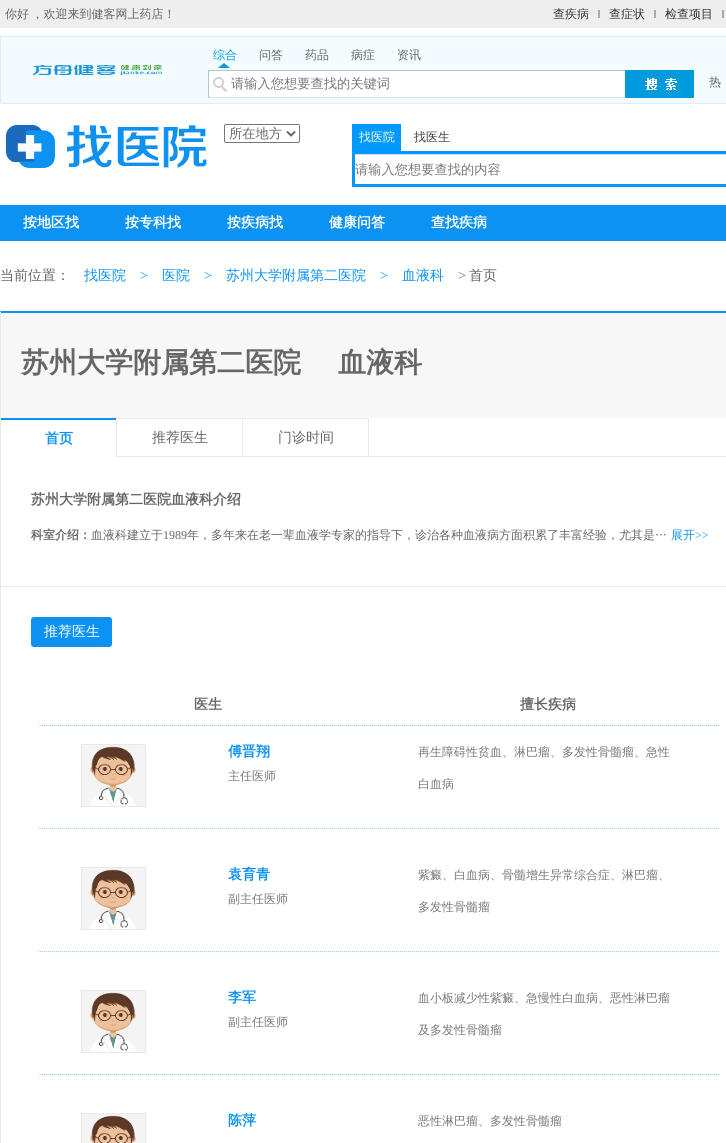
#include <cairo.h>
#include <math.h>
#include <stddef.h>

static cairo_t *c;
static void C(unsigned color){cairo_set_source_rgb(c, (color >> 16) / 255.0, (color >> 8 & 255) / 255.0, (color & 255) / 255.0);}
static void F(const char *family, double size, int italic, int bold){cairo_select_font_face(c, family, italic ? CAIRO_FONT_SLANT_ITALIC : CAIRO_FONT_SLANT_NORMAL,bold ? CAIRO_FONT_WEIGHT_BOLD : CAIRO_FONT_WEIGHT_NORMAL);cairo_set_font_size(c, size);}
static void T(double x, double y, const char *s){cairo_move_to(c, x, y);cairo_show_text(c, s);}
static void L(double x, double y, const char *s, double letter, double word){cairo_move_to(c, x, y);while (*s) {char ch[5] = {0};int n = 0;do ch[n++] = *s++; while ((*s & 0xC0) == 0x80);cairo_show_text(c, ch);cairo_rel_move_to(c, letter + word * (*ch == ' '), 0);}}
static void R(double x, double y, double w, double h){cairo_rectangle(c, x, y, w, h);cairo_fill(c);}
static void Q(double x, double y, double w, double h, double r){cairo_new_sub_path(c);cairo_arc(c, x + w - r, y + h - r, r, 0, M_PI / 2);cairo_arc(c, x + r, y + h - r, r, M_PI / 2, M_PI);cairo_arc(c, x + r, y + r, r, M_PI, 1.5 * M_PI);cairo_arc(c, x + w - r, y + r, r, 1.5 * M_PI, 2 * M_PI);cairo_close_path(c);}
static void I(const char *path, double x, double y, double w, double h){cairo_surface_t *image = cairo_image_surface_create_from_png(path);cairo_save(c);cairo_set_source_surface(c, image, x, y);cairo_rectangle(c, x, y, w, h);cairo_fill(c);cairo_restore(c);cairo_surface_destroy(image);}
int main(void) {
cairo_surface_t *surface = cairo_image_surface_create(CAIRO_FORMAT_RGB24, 726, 1143);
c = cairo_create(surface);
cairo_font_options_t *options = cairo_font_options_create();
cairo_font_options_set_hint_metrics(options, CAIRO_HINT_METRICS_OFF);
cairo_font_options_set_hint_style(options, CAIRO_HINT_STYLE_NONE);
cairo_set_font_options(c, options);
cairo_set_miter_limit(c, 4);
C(0xffffff);
cairo_paint(c);
C(0xeeeeee);
R(0,0,726,28);
F("WenQuanYi Zen Hei Medium",12,0,0);
C(0x666666);
L(5,18,"你好 ，欢迎来到健客网上药店！",0,-1);
C(0x333333);
T(553,18,"查疾病");
C(0xa8a8a8);
R(598,10,2,8);
C(0x333333);
T(609,18,"查症状");
C(0xa8a8a8);
R(654,10,2,8);
C(0x333333);
T(665,18,"检查项目");
C(0xa8a8a8);
R(722,10,2,8);
C(0xf3fbff);
R(2,37,724,66);
C(0xdaefff);
R(0,36,726,1);
R(0,103,726,1);
I("1.png",0,36,2,68);
I("2.png",32,65,131,10);
C(0x009bdc);
T(213,59,"综合");
I("3.png",218,63,12,5);
C(0x666666);
T(259,59,"问答");
T(305,59,"药品");
T(351,59,"病症");
T(397,59,"资讯");
C(0xffffff);
R(209,71,416,26);
C(0xb0c7c7);
R(208,70,417,1);
C(0xdde6e6);
R(208,97,417,1);
C(0xb0c7c7);
R(208,70,1,28);
I("4.png",210,76,17,16);
F("WenQuanYi Zen Hei Medium",13.25,0,0);
C(0x777777);
T(231,88,"请输入您想要查找的关键词");
I("5.png",625,70,69,28);
F("WenQuanYi Zen Hei Medium",12,0,0);
C(0x666666);
T(709,86,"热");
I("6.png",0,125,208,43);
Q(224.5,124.5,75,18,1.5);
C(0x767676);
cairo_set_line_width(c,1);
cairo_stroke(c);
cairo_new_path(c);
cairo_move_to(c,287,131.5);
cairo_line_to(c,291,135.5);
cairo_line_to(c,295,131.5);
C(0x666666);
cairo_set_line_width(c,2);
cairo_stroke(c);
F("WenQuanYi Zen Hei Medium",13.25,0,0);
T(229,138,"所在地方");
C(0x0099ff);
R(352,124,49,27);
F("WenQuanYi Zen Hei Medium",12,0,0);
C(0xffffff);
T(359,141,"找医院");
C(0x3c3c3c);
T(414,141,"找医生");
C(0x0099ff);
R(352,151,374,3);
R(352,184,374,3);
R(352,151,3,36);
C(0xd9d9d9);
R(355,154,371,1);
F("WenQuanYi Zen Hei Medium",13.25,0,0);
C(0x777777);
T(355,174,"请输入您想要查找的内容");
C(0x0c92f2);
R(0,205,726,36);
F("WenQuanYi Zen Hei",14,0,1);
C(0xffffff);
T(23,227,"按地区找");
T(125,227,"按专科找");
T(227,227,"按疾病找");
T(329,227,"健康问答");
T(431,227,"查找疾病");
F("WenQuanYi Zen Hei Medium",14,0,0);
C(0x666666);
T(0,280,"当前位置：");
C(0x0c92f2);
T(84,280,"找医院");
F("Liberation Serif",14,0,0);
T(140,280,">");
F("WenQuanYi Zen Hei Medium",14,0,0);
T(162,280,"医院");
F("Liberation Serif",14,0,0);
T(204,280,">");
F("WenQuanYi Zen Hei Medium",14,0,0);
T(226,280,"苏州大学附属第二医院");
F("Liberation Serif",14,0,0);
T(380,280,">");
F("WenQuanYi Zen Hei Medium",14,0,0);
T(402,280,"血液科");
F("Liberation Serif",14,0,0);
C(0x666666);
T(458,280,">");
F("WenQuanYi Zen Hei Medium",14,0,0);
T(469,280,"首页");
C(0x0c92f2);
cairo_new_path(c);
cairo_move_to(c,0,311);
cairo_line_to(c,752,311);
cairo_line_to(c,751,313);
cairo_line_to(c,1,313);
cairo_close_path(c);
cairo_fill(c);
C(0xe8e9e9);
cairo_new_path(c);
cairo_move_to(c,0,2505);
cairo_line_to(c,0,311);
cairo_line_to(c,1,313);
cairo_line_to(c,1,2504);
cairo_close_path(c);
cairo_fill(c);
R(1,586,725,1);
C(0xf7f7f7);
R(1,313,725,105);
F("WenQuanYi Zen Hei",28,0,1);
C(0x666666);
T(21,372,"苏州大学附属第二医院");
T(338,372,"血液科");
C(0x0c92f2);
R(1,418,115,2);
F("WenQuanYi Zen Hei",14,0,1);
T(45,443,"首页");
C(0xe8e9e9);
R(116,418,252,1);
R(116,456,610,1);
R(116,418,1,39);
F("WenQuanYi Zen Hei Medium",14,0,0);
C(0x666666);
T(152,442,"推荐医生");
C(0xe8e9e9);
R(242,418,1,39);
C(0x666666);
T(278,442,"门诊时间");
C(0xe8e9e9);
R(368,418,1,39);
F("WenQuanYi Zen Hei",14,0,1);
C(0x666666);
T(31,504,"苏州大学附属第二医院血液科介绍");
F("WenQuanYi Zen Hei",12,0,1);
T(31,539,"科室介绍：");
F("WenQuanYi Zen Hei Medium",12,0,0);
T(91,539,"血液科建立于");
F("Liberation Serif",12,0,0);
T(163,539,"1989");
F("WenQuanYi Zen Hei Medium",12,0,0);
T(187,539,"年，多年来在老一辈血液学专家的指导下，诊治各种血液病方面积累了丰富经验，尤其是…");
C(0x0c92f2);
T(671,539,"展开");
F("Liberation Serif",12,0,0);
T(695,539,">>");
I("7.png",31,617,81,30);
F("WenQuanYi Zen Hei Medium",14,0,0);
C(0xffffff);
T(44,636,"推荐医生");
cairo_new_path(c);
cairo_move_to(c,38,725.5);
cairo_line_to(c,719,725.5);
C(0x99ccff);
cairo_set_line_width(c,1);
cairo_set_dash(c,(double[]){1,1},2,0);
cairo_stroke(c);
F("WenQuanYi Zen Hei",14,0,1);
C(0x666666);
T(194,709,"医生");
T(520,709,"擅长疾病");
cairo_new_path(c);
cairo_move_to(c,38,828.5);
cairo_line_to(c,719,828.5);
C(0x99ccff);
cairo_stroke(c);
cairo_rectangle(c,81.5,744.5,64,62);
C(0xe4e9ec);
cairo_set_dash(c,NULL,0,0);
cairo_stroke(c);
I("8.png",82,745,63,61);
C(0x0c92f2);
T(228,756,"傅晋翔");
F("WenQuanYi Zen Hei Medium",12,0,0);
C(0x777777);
T(228,780,"主任医师");
T(418,756,"再生障碍性贫血、淋巴瘤、多发性骨髓瘤、急性");
T(418,788,"白血病");
cairo_new_path(c);
cairo_move_to(c,38,951.5);
cairo_line_to(c,719,951.5);
C(0x99ccff);
cairo_set_dash(c,(double[]){1,1},2,0);
cairo_stroke(c);
cairo_rectangle(c,81.5,867.5,64,62);
C(0xe4e9ec);
cairo_set_dash(c,NULL,0,0);
cairo_stroke(c);
I("8.png",82,868,63,61);
F("WenQuanYi Zen Hei",14,0,1);
C(0x0c92f2);
T(228,879,"袁育青");
F("WenQuanYi Zen Hei Medium",12,0,0);
C(0x777777);
T(228,903,"副主任医师");
T(418,879,"紫癜、白血病、骨髓增生异常综合症、淋巴瘤、");
T(418,911,"多发性骨髓瘤");
cairo_new_path(c);
cairo_move_to(c,38,1074.5);
cairo_line_to(c,719,1074.5);
C(0x99ccff);
cairo_set_dash(c,(double[]){1,1},2,0);
cairo_stroke(c);
cairo_rectangle(c,81.5,990.5,64,62);
C(0xe4e9ec);
cairo_set_dash(c,NULL,0,0);
cairo_stroke(c);
I("8.png",82,991,63,61);
F("WenQuanYi Zen Hei",14,0,1);
C(0x0c92f2);
T(228,1002,"李军");
F("WenQuanYi Zen Hei Medium",12,0,0);
C(0x777777);
T(228,1026,"副主任医师");
T(418,1002,"血小板减少性紫癜、急慢性白血病、恶性淋巴瘤");
T(418,1034,"及多发性骨髓瘤");
cairo_rectangle(c,81.5,1113.5,64,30);
C(0xe4e9ec);
cairo_stroke(c);
I("9.png",82,1114,63,29);
F("WenQuanYi Zen Hei",14,0,1);
C(0x0c92f2);
T(228,1125,"陈萍");
F("WenQuanYi Zen Hei Medium",12,0,0);
C(0x777777);
T(418,1125,"恶性淋巴瘤、多发性骨髓瘤");
cairo_surface_write_to_png(surface, "o.png");
cairo_font_options_destroy(options);
cairo_destroy(c);
cairo_surface_destroy(surface);
return 0;
}
